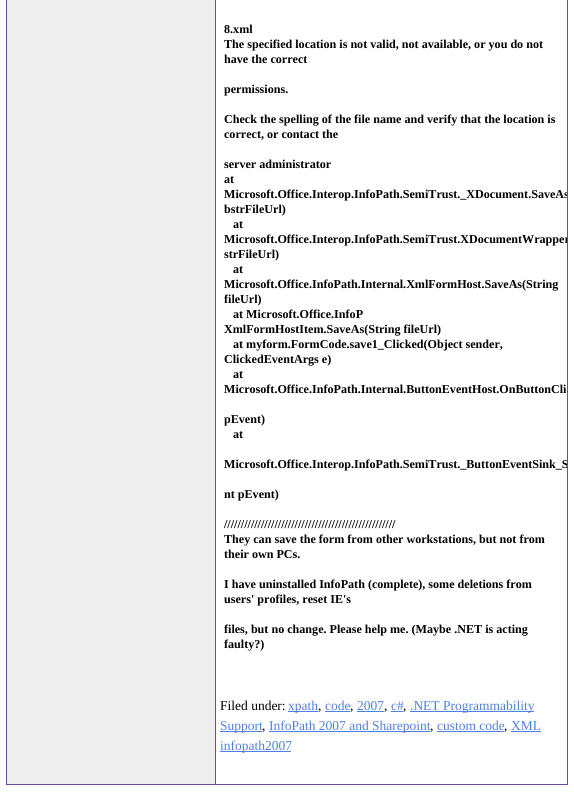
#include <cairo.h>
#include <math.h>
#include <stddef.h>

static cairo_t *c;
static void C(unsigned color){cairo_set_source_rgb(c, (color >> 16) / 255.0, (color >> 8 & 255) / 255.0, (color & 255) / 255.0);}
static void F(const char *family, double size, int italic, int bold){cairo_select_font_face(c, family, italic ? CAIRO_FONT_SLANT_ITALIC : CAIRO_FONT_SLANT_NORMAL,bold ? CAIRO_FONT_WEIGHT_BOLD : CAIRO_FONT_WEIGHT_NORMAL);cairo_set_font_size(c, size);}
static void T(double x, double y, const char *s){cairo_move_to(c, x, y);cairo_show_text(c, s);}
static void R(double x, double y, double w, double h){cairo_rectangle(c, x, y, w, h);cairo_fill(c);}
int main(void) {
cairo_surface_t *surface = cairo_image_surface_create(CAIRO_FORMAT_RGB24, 574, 796);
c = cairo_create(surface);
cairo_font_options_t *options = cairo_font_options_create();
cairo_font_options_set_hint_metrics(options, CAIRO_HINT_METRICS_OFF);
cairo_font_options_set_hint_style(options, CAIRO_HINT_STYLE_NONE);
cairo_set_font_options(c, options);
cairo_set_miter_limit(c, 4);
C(0xffffff);
cairo_paint(c);
C(0xeeeeee);
cairo_rectangle(c,6.5,-.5,209,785);
cairo_fill_preserve(c);
C(0x6e4a9f);
cairo_set_line_width(c,1);
cairo_stroke(c);
R(567,0,1,785);
F("Liberation Serif",12.1,0,1);
C(0x000000);
T(224,33,"8.xml");
T(224,48,"The specified location is not valid, not available, or you do not");
T(224,63,"have the correct");
T(224,93,"permissions.");
T(224,123,"Check the spelling of the file name and verify that the location is");
T(224,138,"correct, or contact the");
T(224,168,"server administrator");
T(224,183,"at");
cairo_save(c);
cairo_rectangle(c,216,0,351,692);
cairo_clip(c);
T(224,198,"Microsoft.Office.Interop.InfoPath.SemiTrust._XDocument.SaveAs");
cairo_restore(c);
T(224,213,"bstrFileUrl)");
T(233,228,"at");
cairo_save(c);
cairo_rectangle(c,216,0,351,692);
cairo_clip(c);
T(224,243,"Microsoft.Office.Interop.InfoPath.SemiTrust.XDocumentWrapper");
cairo_restore(c);
T(224,258,"strFileUrl)");
T(233,273,"at");
T(224,288,"Microsoft.Office.InfoPath.Internal.XmlFormHost.SaveAs(String");
T(224,303,"fileUrl)");
T(233,318,"at Microsoft.Office.InfoP");
T(224,333,"XmlFormHostItem.SaveAs(String fileUrl)");
T(233,348,"at myform.FormCode.save1_Clicked(Object sender,");
T(224,363,"ClickedEventArgs e)");
T(233,378,"at");
T(224,393,"Microsoft.Office.InfoPath.Internal.ButtonEventHost.OnButtonCli");
T(224,423,"pEvent)");
T(233,438,"at");
cairo_save(c);
cairo_rectangle(c,216,0,351,692);
cairo_clip(c);
T(224,468,"Microsoft.Office.Interop.InfoPath.SemiTrust._ButtonEventSink_S");
cairo_restore(c);
T(224,498,"nt pEvent)");
T(224,528,"///////////////////////////////////////////////////");
T(224,543,"They can save the form from other workstations, but not from");
T(224,558,"their own PCs.");
T(224,588,"I have uninstalled InfoPath (complete), some deletions from");
T(224,603,"users' profiles, reset IE's");
T(224,633,"files, but no change. Please help me. (Maybe .NET is acting");
T(224,648,"faulty?)");
C(0x6e4a9f);
R(216,784,352,1);
F("Liberation Serif",13.5,0,0);
C(0x000000);
T(220,710,"Filed under:");
C(0x5080e0);
R(288,711,30,1);
T(288,710,"xpath");
C(0x000000);
T(318,710,",");
C(0x5080e0);
T(325,710,"code");
C(0x000000);
T(350,710,",");
C(0x5080e0);
R(325,711,25,1);
T(357,710,"2007");
C(0x000000);
T(384,710,",");
C(0x5080e0);
R(357,711,27,1);
T(391,710,"c#");
C(0x000000);
T(403,710,",");
C(0x5080e0);
R(391,711,12,1);
R(410,711,124,1);
T(410,710,".NET Programmability");
R(220,731,42,1);
T(220,730,"Support");
R(269,731,161,1);
T(269,730,"InfoPath 2007 and Sharepoint");
T(437,730,"custom code");
T(511,730,"XML");
C(0x000000);
T(262,730,",");
T(430,730,",");
T(504,730,",");
C(0x5080e0);
R(437,731,67,1);
R(511,731,30,1);
R(220,751,71,1);
T(220,750,"infopath2007");
cairo_surface_write_to_png(surface, "o.png");
cairo_font_options_destroy(options);
cairo_destroy(c);
cairo_surface_destroy(surface);
return 0;
}
